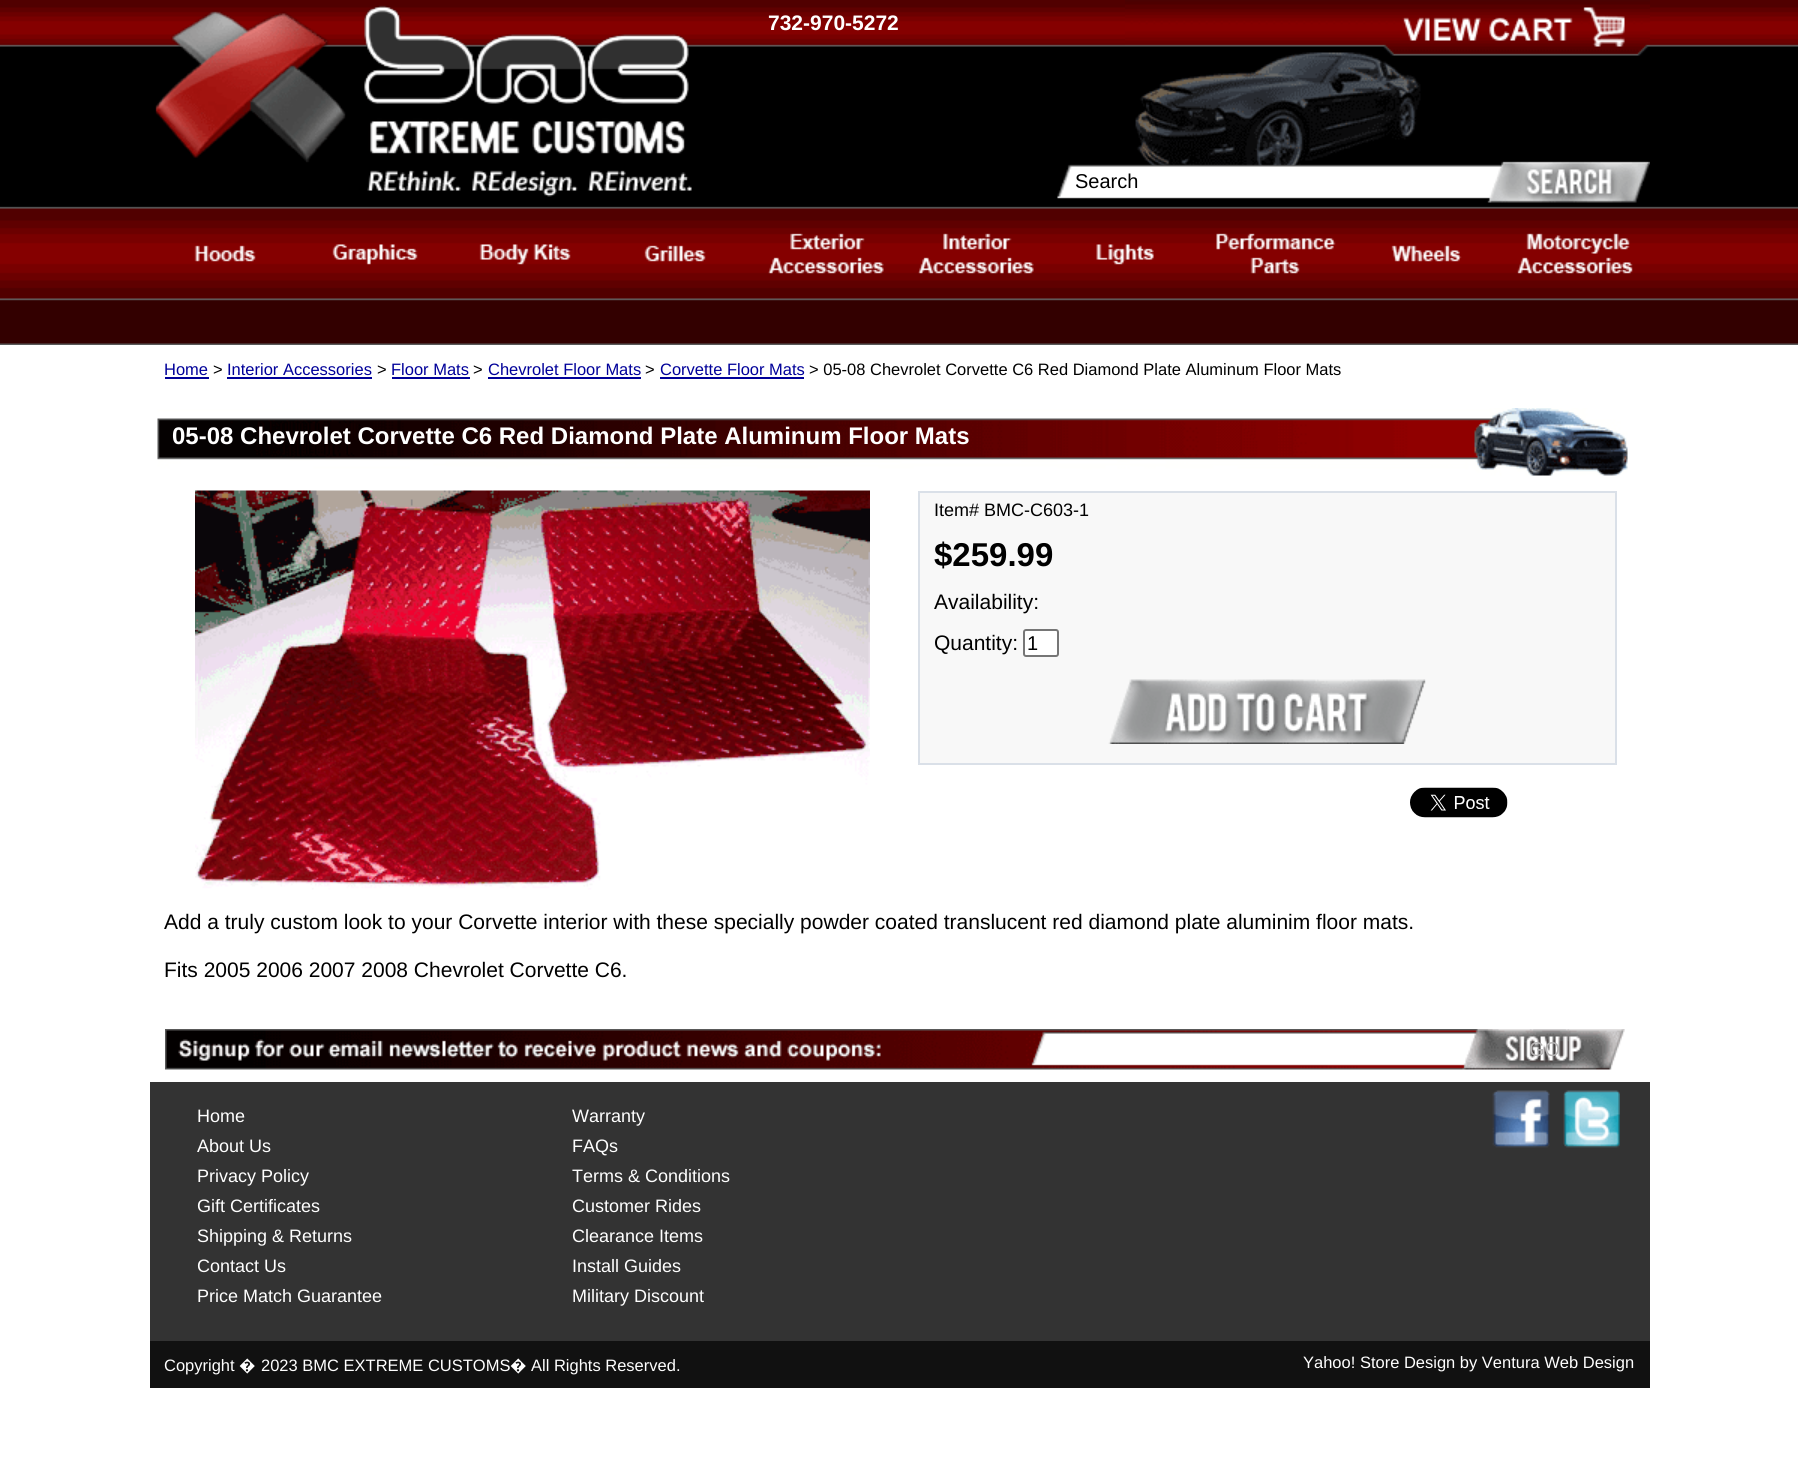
#include <cairo.h>
#include <math.h>
#include <stddef.h>

static cairo_t *c;
static void C(unsigned color){cairo_set_source_rgb(c, (color >> 16) / 255.0, (color >> 8 & 255) / 255.0, (color & 255) / 255.0);}
static void F(const char *family, double size, int italic, int bold){cairo_select_font_face(c, family, italic ? CAIRO_FONT_SLANT_ITALIC : CAIRO_FONT_SLANT_NORMAL,bold ? CAIRO_FONT_WEIGHT_BOLD : CAIRO_FONT_WEIGHT_NORMAL);cairo_set_font_size(c, size);}
static void T(double x, double y, const char *s){cairo_move_to(c, x, y);cairo_show_text(c, s);}
static void R(double x, double y, double w, double h){cairo_rectangle(c, x, y, w, h);cairo_fill(c);}
static void Q(double x, double y, double w, double h, double r){cairo_new_sub_path(c);cairo_arc(c, x + w - r, y + h - r, r, 0, M_PI / 2);cairo_arc(c, x + r, y + h - r, r, M_PI / 2, M_PI);cairo_arc(c, x + r, y + r, r, M_PI, 1.5 * M_PI);cairo_arc(c, x + w - r, y + r, r, 1.5 * M_PI, 2 * M_PI);cairo_close_path(c);}
static void I(const char *path, double x, double y, double w, double h){cairo_surface_t *image = cairo_image_surface_create_from_png(path);cairo_save(c);cairo_set_source_surface(c, image, x, y);cairo_rectangle(c, x, y, w, h);cairo_fill(c);cairo_restore(c);cairo_surface_destroy(image);}
int main(void) {
cairo_surface_t *surface = cairo_image_surface_create(CAIRO_FORMAT_RGB24, 1798, 1467);
c = cairo_create(surface);
cairo_font_options_t *options = cairo_font_options_create();
cairo_font_options_set_hint_metrics(options, CAIRO_HINT_METRICS_OFF);
cairo_font_options_set_hint_style(options, CAIRO_HINT_STYLE_NONE);
cairo_set_font_options(c, options);
cairo_set_miter_limit(c, 4);
C(0xffffff);
cairo_paint(c);
I("1.png",0,0,1798,345);
I("2.png",1125,0,525,185);
I("3.png",155,5,537,192);
F("Liberation Sans",21,0,1);
C(0xffffff);
T(768,30,"732-970-5272");
I("4.png",1402,7,223,40);
I("5.png",1057,161,593,42);
F("Liberation Sans",20,0,0);
C(0x000000);
T(1075,188,"Search");
I("6.png",194,245,62,17);
I("7.png",332,244,86,21);
I("8.png",479,244,92,21);
I("9.png",644,245,62,17);
I("10.png",768,233,116,41);
I("11.png",918,233,116,41);
I("12.png",1096,244,58,21);
I("13.png",1216,233,120,41);
I("14.png",1391,245,71,17);
I("15.png",1517,233,116,41);
F("Liberation Sans",16.5,0,0);
C(0x000099);
T(164,375,"Home");
R(165,377,44,2);
C(0x000000);
T(213,375,">");
C(0x000099);
T(227,375,"Interior Accessories");
R(227,377,145,2);
C(0x000000);
T(377,375,">");
C(0x000099);
T(391,375,"Floor Mats");
R(392,377,78,2);
C(0x000000);
T(473,375,">");
C(0x000099);
T(488,375,"Chevrolet Floor Mats");
R(488,377,153,2);
C(0x000000);
T(645,375,">");
C(0x000099);
T(660,375,"Corvette Floor Mats");
R(660,377,144,2);
C(0x000000);
T(809,375,"> 05-08 Chevrolet Corvette C6 Red Diamond Plate Aluminum Floor Mats");
I("16.png",157,408,1471,68);
F("Liberation Sans",24,0,1);
C(0xffffff);
T(172,444,"05-08 Chevrolet Corvette C6 Red Diamond Plate Aluminum Floor Mats");
I("17.png",195,490,675,400);
C(0xf8f8f8);
cairo_rectangle(c,919,492,697,272);
cairo_fill_preserve(c);
C(0xdae0e8);
cairo_stroke(c);
F("Liberation Sans",18,0,0);
C(0x000000);
T(934,516,"Item# BMC-C603-1");
F("Liberation Sans",33,0,1);
T(934,566,"$259.99");
F("Liberation Sans",21,0,0);
T(934,609,"Availability:");
T(934,650,"Quantity:");
C(0xffffff);
Q(1024,630,34,26,2);
cairo_fill_preserve(c);
C(0x767676);
cairo_stroke(c);
F("Liberation Sans",20,0,0);
C(0x000000);
T(1027,650,"1");
I("18.png",1108,679,318,65);
I("19.png",1410,787,98,31);
F("Liberation Sans",21,0,0);
T(164,929,"Add a truly custom look to your Corvette interior with these specially powder coated translucent red diamond plate aluminim floor mats.");
T(164,977,"Fits 2005 2006 2007 2008 Chevrolet Corvette C6.");
I("20.png",165,1029,1460,41);
F("Liberation Sans",20,0,0);
C(0xb6b4b4);
T(1529,1056,"GO");
C(0x333333);
R(150,1082,1500,259);
F("Liberation Sans",18,0,0);
C(0xffffff);
T(197,1122,"Home");
T(197,1152,"About Us");
T(197,1182,"Privacy Policy");
T(197,1212,"Gift Certificates");
T(197,1242,"Shipping & Returns");
T(197,1272,"Contact Us");
T(197,1302,"Price Match Guarantee");
T(572,1122,"Warranty");
T(572,1152,"FAQs");
T(572,1182,"Terms & Conditions");
T(572,1212,"Customer Rides");
T(572,1242,"Clearance Items");
T(572,1272,"Install Guides");
T(572,1302,"Military Discount");
I("21.png",1492,1090,58,58);
I("22.png",1563,1090,57,58);
C(0x111111);
R(150,1341,1500,47);
F("Liberation Sans",16.5,0,0);
C(0xffffff);
T(164,1371,"Copyright");
F("Noto Sans",16.5,0,0);
T(239,1371,"�");
F("Liberation Sans",16.5,0,0);
T(261,1371,"2023 BMC EXTREME CUSTOMS");
F("Noto Sans",16.5,0,0);
T(510,1371,"�");
F("Liberation Sans",16.5,0,0);
T(531,1371,"All Rights Reserved.");
T(1303,1368,"Yahoo! Store Design by Ventura Web Design");
cairo_surface_write_to_png(surface, "o.png");
cairo_font_options_destroy(options);
cairo_destroy(c);
cairo_surface_destroy(surface);
return 0;
}
